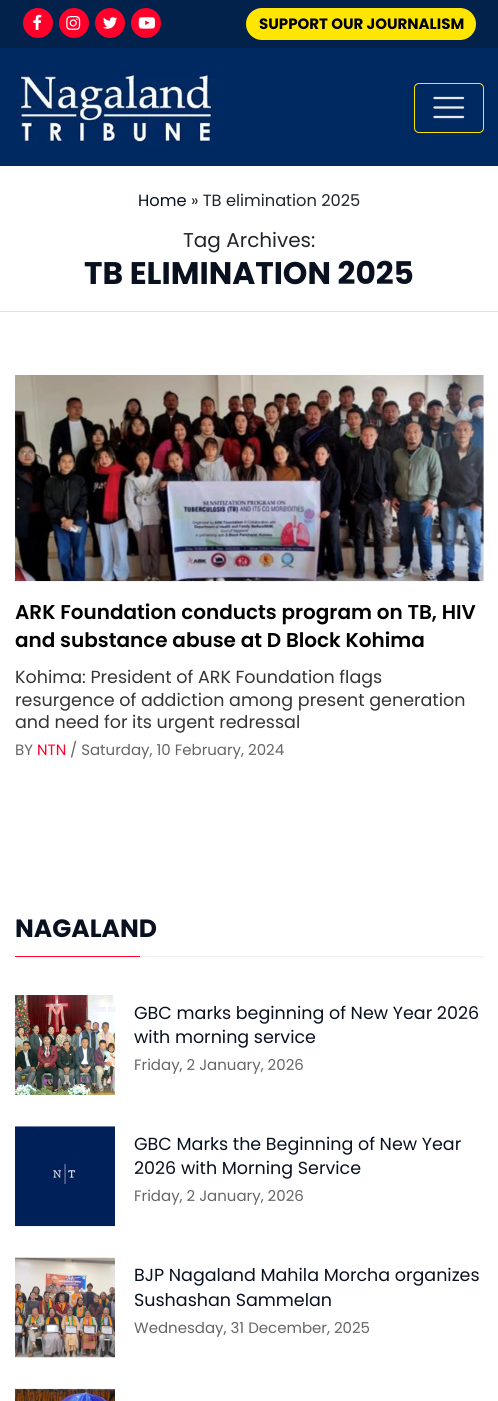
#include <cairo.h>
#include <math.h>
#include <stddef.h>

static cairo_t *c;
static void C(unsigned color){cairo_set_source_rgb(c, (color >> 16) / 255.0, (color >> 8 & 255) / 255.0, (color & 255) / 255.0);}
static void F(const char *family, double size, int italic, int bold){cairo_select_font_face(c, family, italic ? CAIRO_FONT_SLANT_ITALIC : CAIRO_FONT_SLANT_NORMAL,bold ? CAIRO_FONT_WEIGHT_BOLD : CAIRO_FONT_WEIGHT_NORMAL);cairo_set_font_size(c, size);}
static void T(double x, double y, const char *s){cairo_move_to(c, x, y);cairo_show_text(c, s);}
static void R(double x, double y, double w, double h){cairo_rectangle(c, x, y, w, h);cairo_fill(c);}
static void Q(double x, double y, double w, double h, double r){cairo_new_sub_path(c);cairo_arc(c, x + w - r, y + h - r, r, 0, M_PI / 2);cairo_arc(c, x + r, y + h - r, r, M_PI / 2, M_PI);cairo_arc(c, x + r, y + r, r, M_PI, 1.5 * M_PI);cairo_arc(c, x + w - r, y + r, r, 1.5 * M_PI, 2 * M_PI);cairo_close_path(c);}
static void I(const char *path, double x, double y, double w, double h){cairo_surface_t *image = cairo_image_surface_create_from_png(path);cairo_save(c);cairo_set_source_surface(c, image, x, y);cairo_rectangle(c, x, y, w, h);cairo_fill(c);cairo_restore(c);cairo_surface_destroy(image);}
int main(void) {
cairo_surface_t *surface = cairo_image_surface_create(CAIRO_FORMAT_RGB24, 498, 1401);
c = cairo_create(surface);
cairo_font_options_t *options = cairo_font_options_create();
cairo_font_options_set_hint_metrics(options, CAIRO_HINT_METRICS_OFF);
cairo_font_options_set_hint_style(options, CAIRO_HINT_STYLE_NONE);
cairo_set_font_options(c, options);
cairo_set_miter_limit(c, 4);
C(0xffffff);
cairo_paint(c);
C(0x02224c);
R(0,0,498,48);
C(0xfe002a);
cairo_arc(c,38,23,15,0,2 * M_PI);
cairo_fill(c);
I("1.png",33,14,9,16);
cairo_arc(c,74,23,15,0,2 * M_PI);
cairo_fill(c);
I("2.png",66,16,15,14);
cairo_arc(c,110,23,15,0,2 * M_PI);
cairo_fill(c);
I("3.png",103,17,14,12);
cairo_arc(c,146,23,15,0,2 * M_PI);
cairo_fill(c);
I("4.png",138,17,17,12);
C(0xffe502);
Q(246,8,230,32,16);
cairo_fill(c);
F("Poppins",15,0,1);
C(0x000000);
T(259,29,"SUPPORT OUR JOURNALISM");
C(0x002961);
R(0,48,498,118);
I("5.png",15,72,201,75);
Q(414.5,83.5,69,49,4.5);
C(0xffe502);
cairo_set_line_width(c,1);
cairo_stroke(c);
cairo_new_path(c);
cairo_move_to(c,434.5,98);
cairo_line_to(c,463,98);
cairo_move_to(c,434.5,107.5);
cairo_line_to(c,463,107.5);
cairo_move_to(c,434.5,117);
cairo_line_to(c,463,117);
C(0xe6eaef);
cairo_set_line_width(c,2.3);
cairo_set_line_cap(c,CAIRO_LINE_CAP_ROUND);
cairo_stroke(c);
C(0xe1e1e1);
R(0,311,498,1);
F("Poppins",16.25,0,0);
C(0x09101f);
T(138,206,"Home");
C(0x212529);
T(191,206,"» TB elimination 2025");
F("Poppins",20,0,0);
T(183,247,"Tag Archives:");
F("Poppins",31.25,0,1);
C(0x09101f);
T(84,284,"TB ELIMINATION 2025");
I("6.png",15,375,469,207);
F("Poppins SemiBold",20,0,0);
C(0x000000);
T(15,619,"ARK Foundation conducts program on TB, HIV");
T(15,647,"and substance abuse at D Block Kohima");
F("Poppins",17.5,0,0);
C(0x343434);
T(15,683,"Kohima: President of ARK Foundation flags");
T(15,706,"resurgence of addiction among present generation");
T(15,728,"and need for its urgent redressal");
F("Poppins",15,0,0);
C(0x656565);
T(15,755,"BY");
C(0xfe002a);
T(37,755,"NTN");
C(0x656565);
T(70,755,"/ Saturday, 10 February, 2024");
C(0xeeeeee);
R(140,956,344,1);
F("Poppins",25,0,1);
C(0x09101f);
T(15,937,"NAGALAND");
C(0xfe002a);
R(15,956,125,1);
I("7.png",15,995,100,100);
F("Poppins",17.5,0,0);
C(0x09101f);
T(134,1019,"GBC marks beginning of New Year 2026");
T(134,1043,"with morning service");
F("Poppins",15,0,0);
C(0x656565);
T(134,1070,"Friday, 2 January, 2026");
I("8.png",15,1126,100,101);
F("Poppins",17.5,0,0);
C(0x09101f);
T(134,1150,"GBC Marks the Beginning of New Year");
T(134,1174,"2026 with Morning Service");
F("Poppins",15,0,0);
C(0x656565);
T(134,1201,"Friday, 2 January, 2026");
I("9.png",15,1257,100,101);
F("Poppins",17.5,0,0);
C(0x09101f);
T(134,1281,"BJP Nagaland Mahila Morcha organizes");
T(134,1306,"Sushashan Sammelan");
F("Poppins",15,0,0);
C(0x656565);
T(134,1333,"Wednesday, 31 December, 2025");
I("10.png",15,1388,100,13);
cairo_surface_write_to_png(surface, "o.png");
cairo_font_options_destroy(options);
cairo_destroy(c);
cairo_surface_destroy(surface);
return 0;
}
